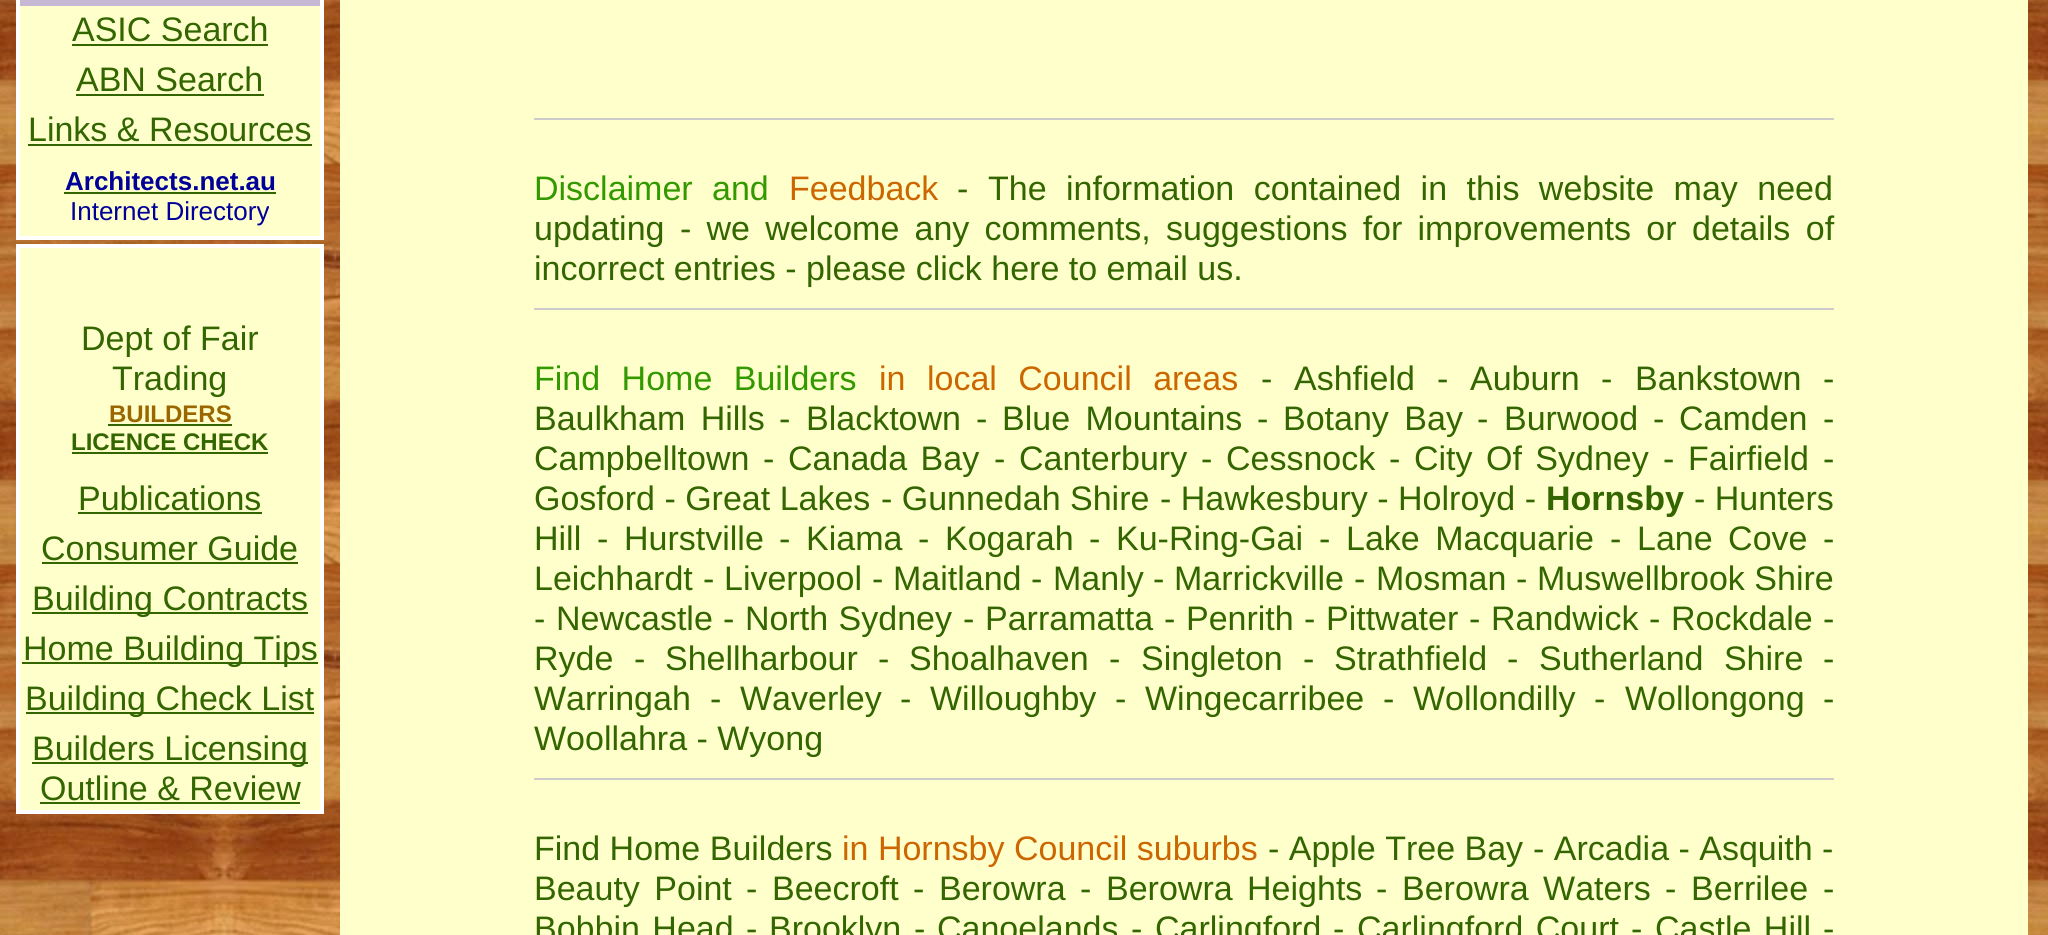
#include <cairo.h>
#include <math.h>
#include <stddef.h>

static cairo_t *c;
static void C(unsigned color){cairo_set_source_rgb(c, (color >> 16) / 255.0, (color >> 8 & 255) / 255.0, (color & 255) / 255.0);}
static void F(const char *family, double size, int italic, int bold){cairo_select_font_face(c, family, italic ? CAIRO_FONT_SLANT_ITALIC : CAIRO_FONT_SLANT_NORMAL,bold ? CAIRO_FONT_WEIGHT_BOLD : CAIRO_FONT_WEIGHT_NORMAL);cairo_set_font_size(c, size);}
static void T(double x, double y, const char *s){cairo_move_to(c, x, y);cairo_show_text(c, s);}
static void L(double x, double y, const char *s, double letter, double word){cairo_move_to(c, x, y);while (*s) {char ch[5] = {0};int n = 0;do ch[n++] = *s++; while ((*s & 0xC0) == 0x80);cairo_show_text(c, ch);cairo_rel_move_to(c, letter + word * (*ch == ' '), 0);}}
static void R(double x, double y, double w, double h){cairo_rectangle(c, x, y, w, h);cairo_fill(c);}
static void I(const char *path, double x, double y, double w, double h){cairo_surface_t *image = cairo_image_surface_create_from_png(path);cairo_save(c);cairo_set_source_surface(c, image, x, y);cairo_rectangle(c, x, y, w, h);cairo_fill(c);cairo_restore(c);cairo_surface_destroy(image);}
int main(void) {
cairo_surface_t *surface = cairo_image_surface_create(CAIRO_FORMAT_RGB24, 2048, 935);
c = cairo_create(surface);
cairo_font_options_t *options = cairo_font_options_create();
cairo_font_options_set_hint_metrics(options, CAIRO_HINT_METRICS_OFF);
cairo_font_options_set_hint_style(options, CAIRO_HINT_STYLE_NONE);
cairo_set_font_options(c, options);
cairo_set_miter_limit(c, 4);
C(0xffffff);
cairo_paint(c);
I("1.png",0,0,2048,935);
C(0xffffcc);
R(20,6,300,230);
cairo_rectangle(c,17,-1,306,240);
C(0xffffff);
cairo_stroke(c);
cairo_rectangle(c,19,-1,302,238);
cairo_stroke(c);
C(0xc6b7d4);
R(20,0,300,6);
F("Liberation Sans",34,0,0);
C(0x336600);
T(72,41,"ASIC Search");
R(72,44,196,2);
T(76,91,"ABN Search");
R(76,94,188,2);
T(28,141,"Links & Resources");
R(28,144,284,2);
F("Liberation Sans",26,0,1);
C(0x000099);
T(65,190,"Architects.net.au");
C(0x336600);
R(64,192,212,2);
F("Liberation Sans",26,0,0);
C(0x000099);
T(70,220,"Internet Directory");
C(0xffffcc);
R(20,248,300,562);
cairo_rectangle(c,17,245,306,568);
C(0xffffff);
cairo_stroke(c);
cairo_rectangle(c,19,247,302,564);
cairo_stroke(c);
F("Liberation Sans",34,0,0);
C(0x336600);
T(81,350,"Dept of Fair");
T(112,390,"Trading");
F("Liberation Sans",24,0,1);
C(0x996600);
T(109,422,"BUILDERS");
C(0x336600);
R(108,424,124,2);
T(71,450,"LICENCE CHECK");
R(72,452,196,2);
F("Liberation Sans",34,0,0);
T(78,510,"Publications");
R(78,512,184,2);
T(41,560,"Consumer Guide");
R(42,562,256,2);
R(32,612,276,2);
T(32,610,"Building Contracts");
R(22,662,296,2);
T(23,660,"Home Building Tips");
R(26,712,288,2);
T(25,710,"Building Check List");
R(32,762,276,2);
T(32,760,"Builders Licensing");
T(40,800,"Outline & Review");
R(40,802,260,2);
C(0xffffcc);
R(340,0,1688,935);
C(0xcccccc);
R(534,118,1300,2);
C(0x339900);
T(534,200,"Disclaimer");
T(712,200,"and");
C(0xcc6600);
T(789,200,"Feedback");
C(0x336600);
T(957,200,"-");
L(988,200,"The information contained in this website may need",0,10);
T(534,240,"updating");
L(680,240,"- we welcome any comments, suggestions for improvements or",0,5.75);
L(1692,240,"details of",0,6);
T(534,280,"incorrect entries - please click here to email us.");
C(0xcccccc);
R(534,308,1300,2);
C(0x339900);
L(534,390,"Find Home Builders",0,12);
C(0xcc6600);
L(879,390,"in local Council areas",0,12);
C(0x336600);
T(1261,390,"-");
T(1294,390,"Ashfield");
T(1437,390,"-");
T(1470,390,"Auburn");
T(1601,390,"-");
T(1635,390,"Bankstown");
T(1823,390,"-");
L(534,430,"Baulkham Hills",0,6);
T(779,430,"-");
T(806,430,"Blacktown");
T(976,430,"-");
L(1002,430,"Blue Mountains",0,6);
T(1257,430,"-");
L(1283,430,"Botany Bay",0,6);
T(1477,430,"-");
T(1504,430,"Burwood");
T(1653,430,"-");
T(1679,430,"Camden");
T(1823,430,"-");
T(534,470,"Campbelltown");
T(763,470,"-");
L(788,470,"Canada Bay",0,4);
T(994,470,"-");
T(1019,470,"Canterbury");
T(1201,470,"-");
T(1226,470,"Cessnock");
T(1389,470,"-");
L(1414,470,"City Of Sydney",0,4);
T(1663,470,"-");
T(1688,470,"Fairfield");
T(1823,470,"-");
T(534,510,"Gosford - Great Lakes");
T(881,510,"- Gunnedah Shire");
T(1160,510,"- Hawkesbury - Holroyd -");
F("Liberation Sans",34,0,1);
T(1546,510,"Hornsby");
F("Liberation Sans",34,0,0);
T(1694,510,"- Hunters");
T(534,550,"Hill");
T(597,550,"-");
T(624,550,"Hurstville");
T(779,550,"-");
T(806,550,"Kiama");
T(918,550,"-");
T(945,550,"Kogarah");
T(1089,550,"-");
T(1116,550,"Ku-Ring-Gai");
T(1319,550,"-");
L(1346,550,"Lake Macquarie",0,6);
T(1610,550,"-");
L(1637,550,"Lane Cove",0,6);
T(1823,550,"-");
T(534,590,"Leichhardt");
T(703,590,"-");
T(724,590,"Liverpool");
T(872,590,"-");
T(893,590,"Maitland");
T(1031,590,"-");
T(1053,590,"Manly");
T(1153,590,"-");
T(1174,590,"Marrickville");
T(1354,590,"-");
T(1376,590,"Mosman");
T(1516,590,"-");
T(1537,590,"Muswellbrook Shire");
T(534,630,"-");
T(556,630,"Newcastle");
T(723,630,"-");
L(745,630,"North Sydney",0,1);
T(963,630,"-");
T(985,630,"Parramatta");
T(1164,630,"-");
T(1186,630,"Penrith");
T(1304,630,"-");
T(1326,630,"Pittwater");
T(1469,630,"-");
T(1491,630,"Randwick");
T(1649,630,"-");
T(1671,630,"Rockdale");
T(1823,630,"-");
T(534,670,"Ryde");
T(634,670,"-");
T(665,670,"Shellharbour");
T(878,670,"-");
T(909,670,"Shoalhaven");
T(1109,670,"-");
T(1141,670,"Singleton");
T(1303,670,"-");
T(1334,670,"Strathfield");
T(1507,670,"-");
L(1539,670,"Sutherland Shire",0,11);
T(1823,670,"-");
T(534,710,"Warringah");
T(710,710,"-");
T(740,710,"Waverley");
T(900,710,"-");
T(930,710,"Willoughby");
T(1115,710,"-");
T(1145,710,"Wingecarribee");
T(1383,710,"-");
T(1413,710,"Wollondilly");
T(1594,710,"-");
T(1625,710,"Wollongong");
T(1823,710,"-");
T(534,750,"Woollahra - Wyong");
C(0xcccccc);
R(534,778,1300,2);
C(0x336600);
T(534,860,"Find Home Builders");
C(0xcc6600);
T(842,860,"in Hornsby Council suburbs");
C(0x336600);
T(1268,860,"- Apple Tree Bay");
T(1533,860,"- Arcadia - Asquith -");
L(534,900,"Beauty Point",0,5);
T(746,900,"-");
T(772,900,"Beecroft");
T(913,900,"-");
T(939,900,"Berowra");
T(1080,900,"-");
L(1106,900,"Berowra Heights",0,5);
T(1376,900,"-");
L(1402,900,"Berowra Waters",0,5);
T(1665,900,"-");
T(1691,900,"Berrilee");
T(1823,900,"-");
L(534,940,"Bobbin Head",0,3);
T(746,940,"-");
T(769,940,"Brooklyn");
T(914,940,"-");
T(937,940,"Canoelands");
T(1131,940,"-");
T(1155,940,"Carlingford");
T(1333,940,"-");
L(1357,940,"Carlingford Court",0,3);
T(1631,940,"-");
L(1655,940,"Castle Hill",0,3);
T(1823,940,"-");
cairo_surface_write_to_png(surface, "o.png");
cairo_font_options_destroy(options);
cairo_destroy(c);
cairo_surface_destroy(surface);
return 0;
}
